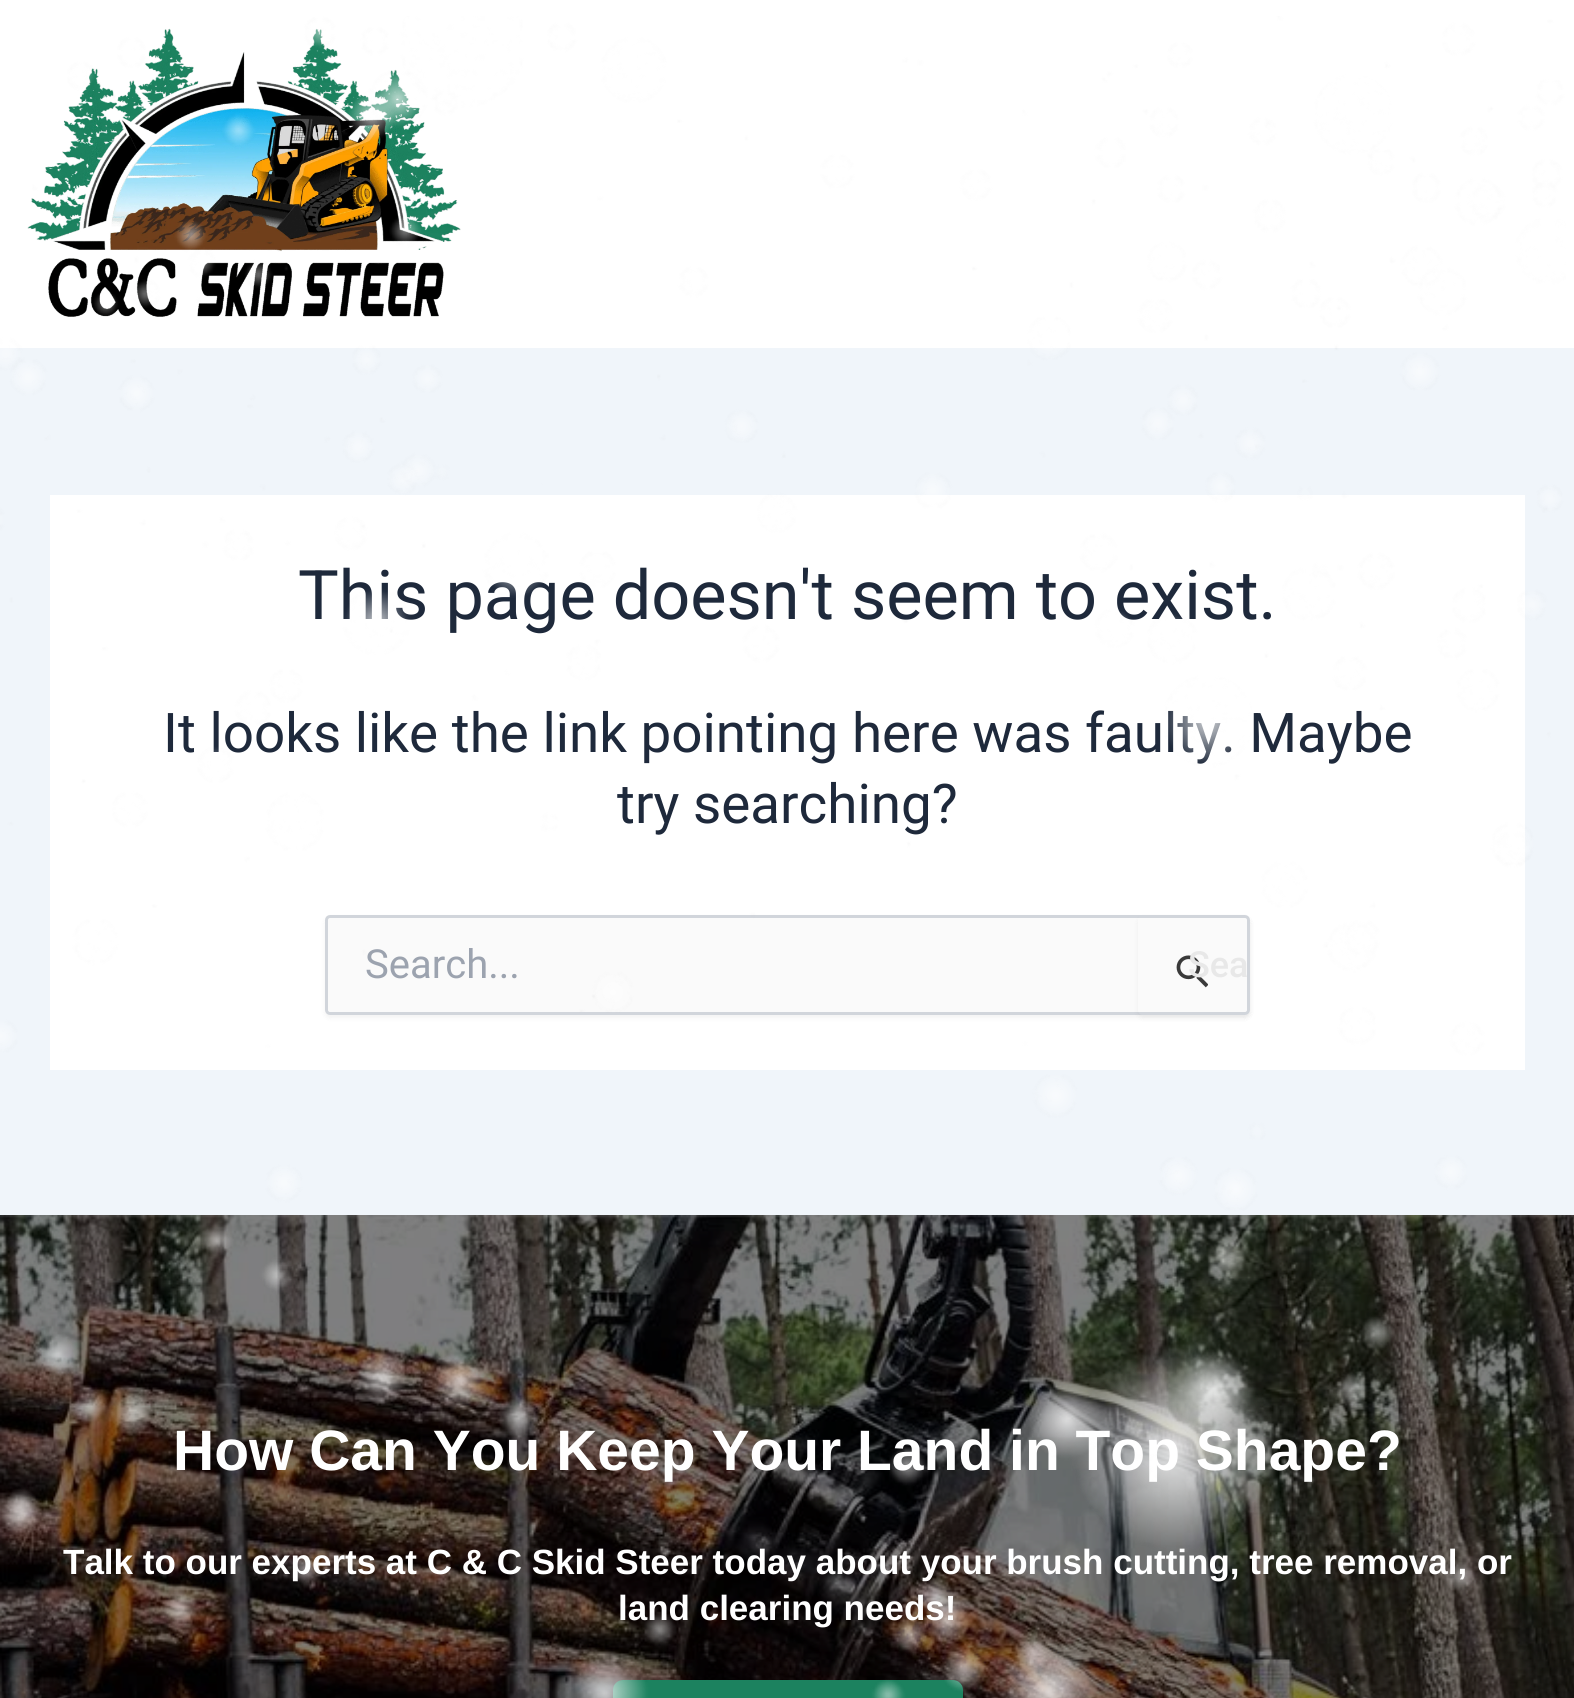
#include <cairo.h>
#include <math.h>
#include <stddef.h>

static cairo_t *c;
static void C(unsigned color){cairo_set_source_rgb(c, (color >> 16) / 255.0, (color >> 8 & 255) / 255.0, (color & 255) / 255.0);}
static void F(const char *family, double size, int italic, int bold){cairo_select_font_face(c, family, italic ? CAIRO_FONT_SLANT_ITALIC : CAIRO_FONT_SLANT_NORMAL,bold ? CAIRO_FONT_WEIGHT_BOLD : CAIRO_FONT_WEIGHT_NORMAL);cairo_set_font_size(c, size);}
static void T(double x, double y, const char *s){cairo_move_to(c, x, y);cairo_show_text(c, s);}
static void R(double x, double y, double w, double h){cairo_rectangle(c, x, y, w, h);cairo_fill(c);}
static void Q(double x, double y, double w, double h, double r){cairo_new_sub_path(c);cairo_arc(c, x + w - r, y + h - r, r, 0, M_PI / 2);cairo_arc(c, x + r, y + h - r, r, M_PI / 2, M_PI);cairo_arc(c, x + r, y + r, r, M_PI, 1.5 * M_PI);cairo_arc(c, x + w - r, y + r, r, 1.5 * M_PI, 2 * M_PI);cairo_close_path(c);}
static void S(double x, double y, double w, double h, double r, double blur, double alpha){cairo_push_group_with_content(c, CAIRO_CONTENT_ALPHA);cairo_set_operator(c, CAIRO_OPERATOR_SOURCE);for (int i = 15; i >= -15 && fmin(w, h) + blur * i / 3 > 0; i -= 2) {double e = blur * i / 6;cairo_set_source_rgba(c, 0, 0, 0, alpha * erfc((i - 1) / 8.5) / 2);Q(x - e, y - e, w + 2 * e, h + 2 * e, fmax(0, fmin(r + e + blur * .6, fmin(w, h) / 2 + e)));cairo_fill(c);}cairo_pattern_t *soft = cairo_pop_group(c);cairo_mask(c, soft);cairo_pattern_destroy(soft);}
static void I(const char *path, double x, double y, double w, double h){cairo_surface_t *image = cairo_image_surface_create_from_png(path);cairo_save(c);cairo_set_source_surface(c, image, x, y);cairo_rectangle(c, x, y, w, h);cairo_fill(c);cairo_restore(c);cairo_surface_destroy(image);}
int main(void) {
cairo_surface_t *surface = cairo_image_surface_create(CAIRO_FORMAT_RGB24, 1574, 1698);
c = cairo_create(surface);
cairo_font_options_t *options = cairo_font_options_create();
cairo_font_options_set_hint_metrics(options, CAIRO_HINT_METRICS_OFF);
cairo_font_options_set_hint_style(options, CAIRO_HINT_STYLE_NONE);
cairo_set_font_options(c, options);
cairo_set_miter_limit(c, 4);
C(0xf0f5fa);
cairo_paint(c);
C(0xffffff);
R(0,0,1574,348);
I("2.png",27,28,434,289);
R(50,495,1475,575);
F("Roboto",68.4,0,0);
C(0x1e293b);
T(298,619,"This page doesn't seem to exist.");
F("Roboto",54.75,0,0);
T(163,752,"It looks like the link pointing here was faulty. Maybe");
T(617,823,"try searching?");
C(0x000000);
S(325,918,925,100,5,2.5,.05);
C(0xfafafa);
Q(326.5,916.5,922,97,3.5);
cairo_fill_preserve(c);
C(0xd1d5db);
cairo_set_line_width(c,3);
cairo_stroke(c);
F("Roboto",40,0,0);
C(0x9ca3af);
T(365,978,"Search...");
I("3.png",1176,955,32,33);
cairo_save(c);
cairo_set_fill_rule(c,CAIRO_FILL_RULE_EVEN_ODD);
cairo_new_path(c);
cairo_move_to(c,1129,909);
cairo_line_to(c,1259,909);
cairo_line_to(c,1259,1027);
cairo_line_to(c,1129,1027);
cairo_close_path(c);
cairo_move_to(c,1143,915);
cairo_line_to(c,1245,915);
cairo_curve_to(c,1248,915,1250,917,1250,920);
cairo_line_to(c,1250,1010);
cairo_curve_to(c,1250,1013,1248,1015,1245,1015);
cairo_line_to(c,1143,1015);
cairo_curve_to(c,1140,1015,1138,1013,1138,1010);
cairo_line_to(c,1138,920);
cairo_curve_to(c,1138,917,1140,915,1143,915);
cairo_close_path(c);
cairo_clip(c);
C(0x000000);
S(1138,918,112,100,5,2.5,.05);
cairo_restore(c);
F("Roboto Medium",36,0,0);
C(0xe8e8e8);
T(1188,977,"Sea");
I("4.png",0,1215,1574,483);
F("Liberation Sans",57,0,1);
C(0xffffff);
T(173,1470,"How Can You Keep Your Land in Top Shape?");
F("Liberation Sans",35,0,1);
T(63,1574,"Talk to our experts at C & C Skid Steer today about your brush cutting, tree removal, or");
T(618,1620,"land clearing needs!");
C(0x1c825f);
Q(613,1680,350,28,10);
cairo_fill(c);
I("1.png",0,16,1566,1682);
cairo_surface_write_to_png(surface, "o.png");
cairo_font_options_destroy(options);
cairo_destroy(c);
cairo_surface_destroy(surface);
return 0;
}
